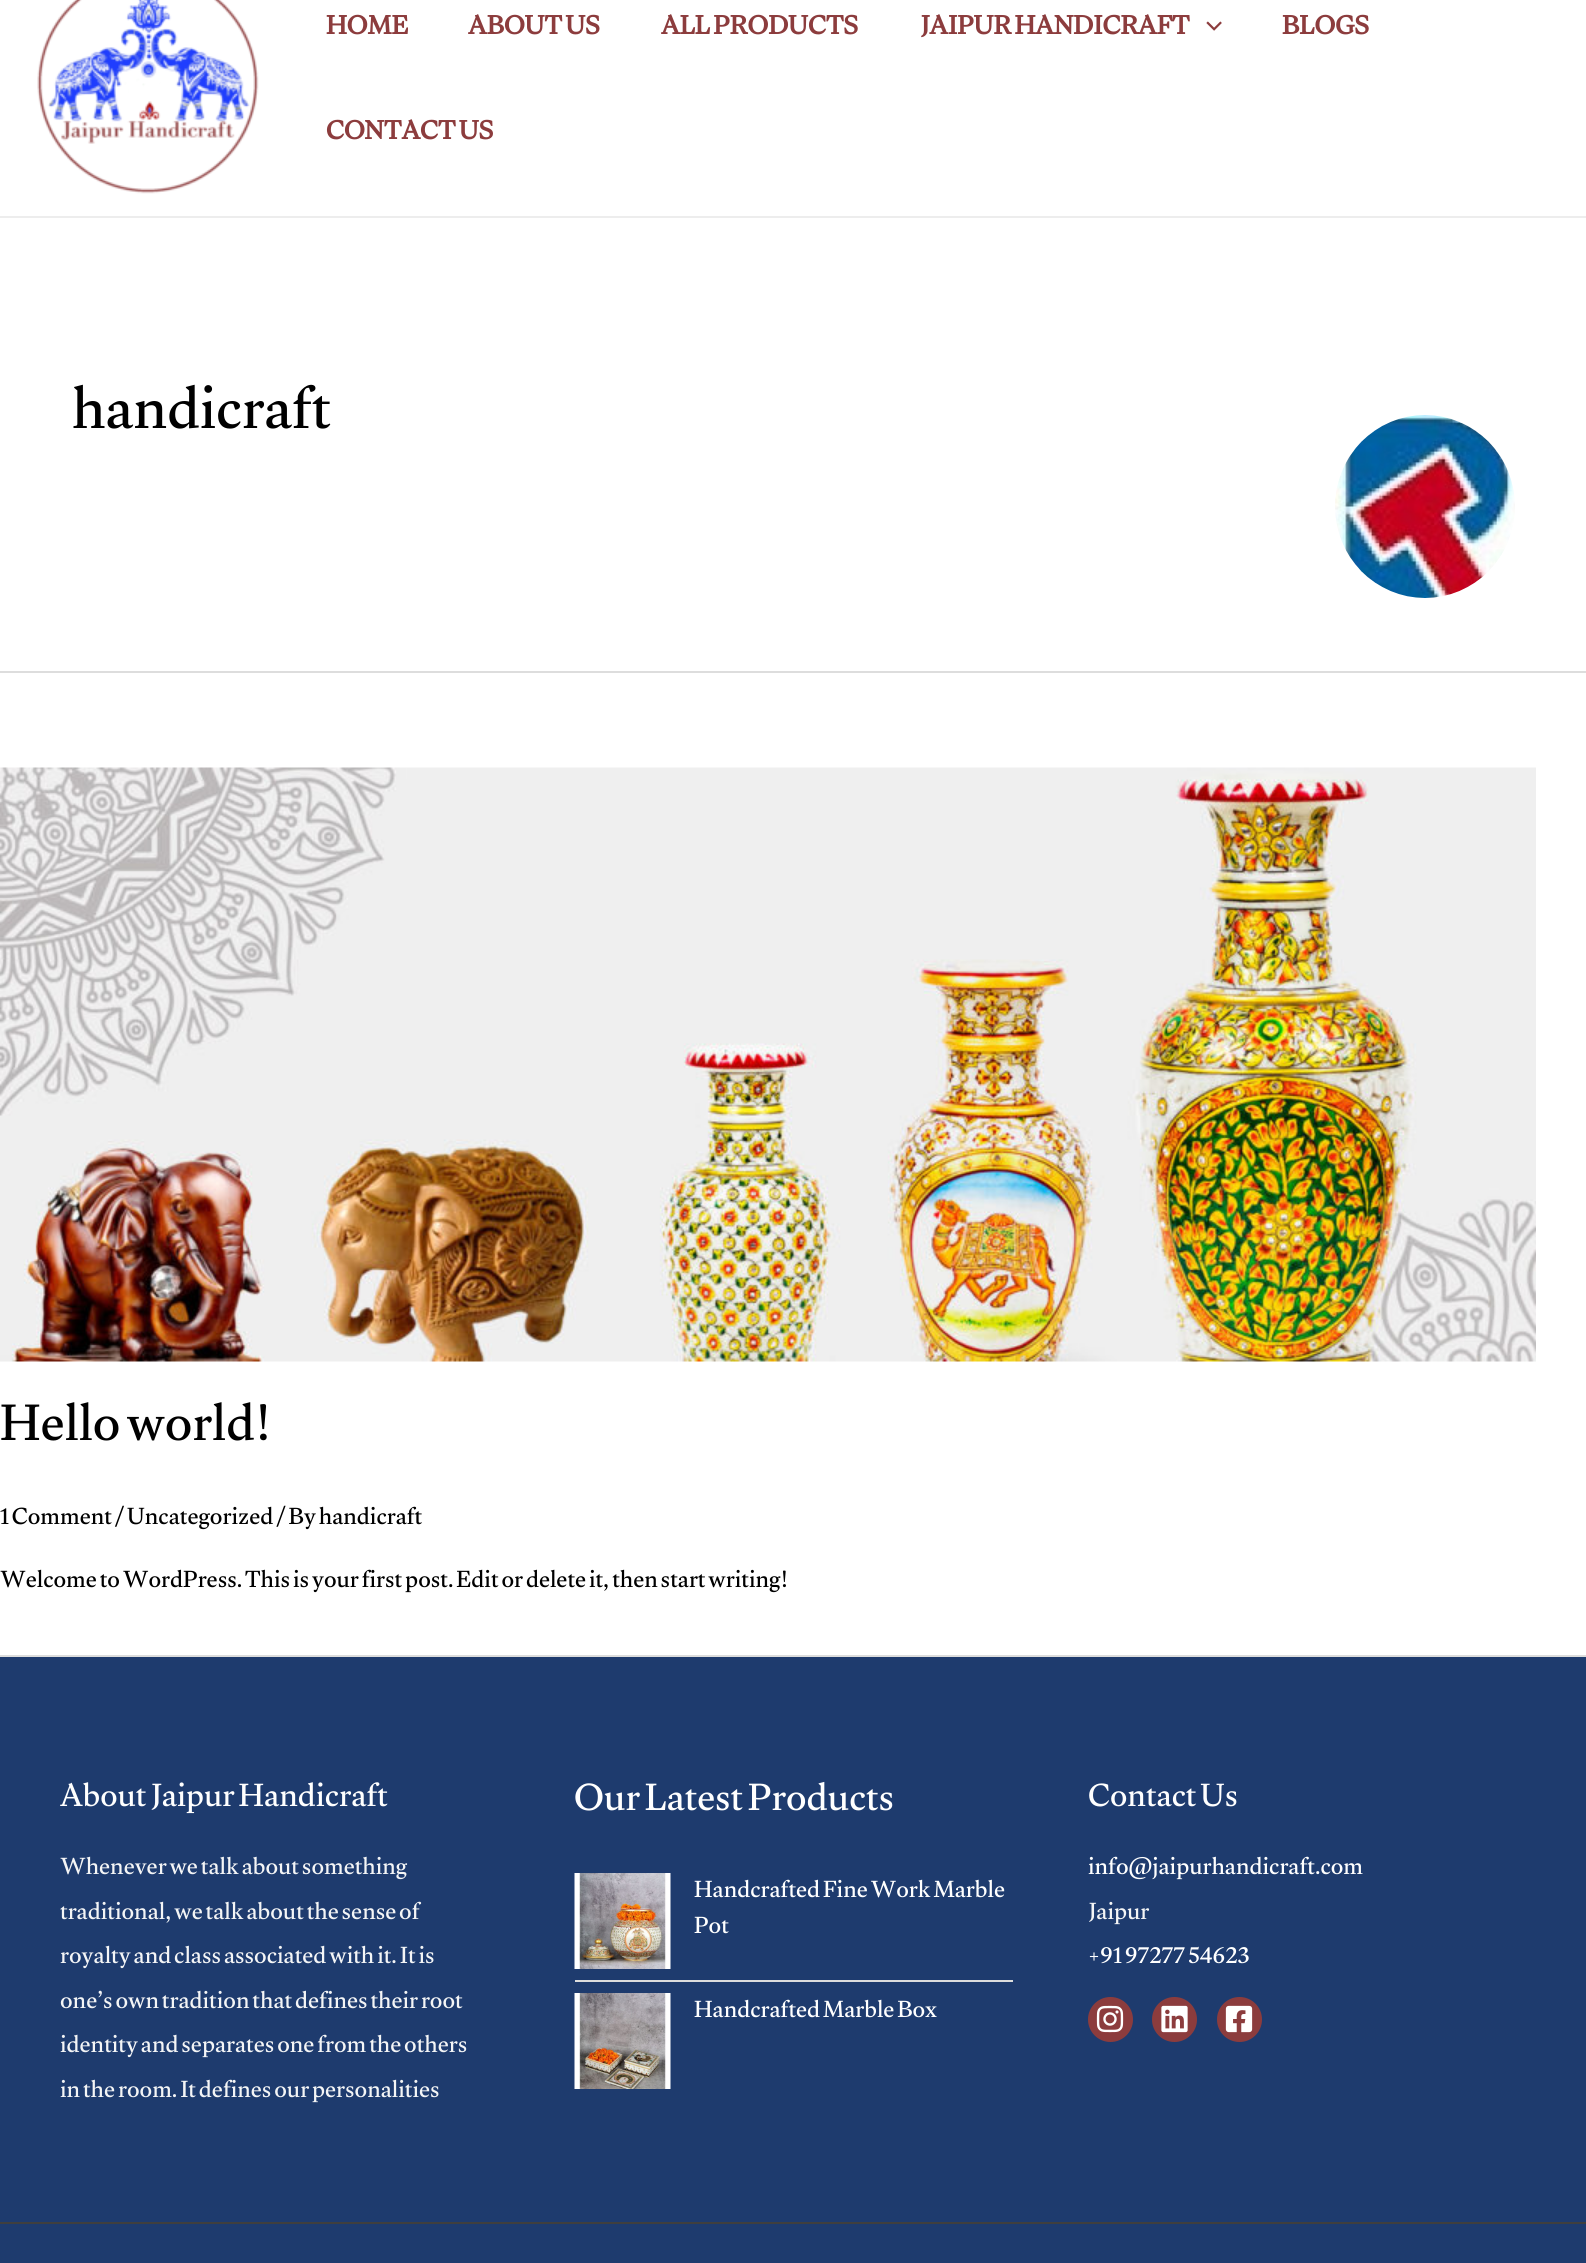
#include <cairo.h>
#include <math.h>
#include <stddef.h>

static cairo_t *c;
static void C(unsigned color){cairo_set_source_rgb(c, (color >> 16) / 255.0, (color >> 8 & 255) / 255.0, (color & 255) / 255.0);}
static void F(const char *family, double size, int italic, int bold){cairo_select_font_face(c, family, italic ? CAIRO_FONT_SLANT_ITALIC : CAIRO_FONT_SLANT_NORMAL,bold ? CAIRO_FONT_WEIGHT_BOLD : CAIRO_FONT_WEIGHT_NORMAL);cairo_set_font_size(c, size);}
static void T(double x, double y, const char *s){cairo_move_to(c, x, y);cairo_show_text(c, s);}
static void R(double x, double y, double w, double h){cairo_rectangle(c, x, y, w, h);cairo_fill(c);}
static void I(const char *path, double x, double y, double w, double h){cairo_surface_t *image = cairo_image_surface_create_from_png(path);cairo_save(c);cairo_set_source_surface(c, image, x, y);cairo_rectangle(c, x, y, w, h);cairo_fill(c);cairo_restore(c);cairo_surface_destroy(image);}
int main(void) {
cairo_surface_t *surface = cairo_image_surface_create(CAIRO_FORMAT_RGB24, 1586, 2263);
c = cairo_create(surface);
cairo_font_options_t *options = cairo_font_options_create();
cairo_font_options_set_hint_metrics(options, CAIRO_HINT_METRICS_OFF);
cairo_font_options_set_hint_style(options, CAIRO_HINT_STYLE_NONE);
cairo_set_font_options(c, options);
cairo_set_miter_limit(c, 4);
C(0xffffff);
cairo_paint(c);
C(0xededed);
R(0,216,1586,2);
I("1.png",37,0,222,194);
F("Gulzar",27,0,1);
C(0x8c3c3d);
T(326,34,"HOME");
T(468,34,"ABOUT US");
T(661,34,"ALL PRODUCTS");
T(920,34,"JAIPUR HANDICRAFT");
I("2.png",1206,21,16,10);
T(1282,34,"BLOGS");
T(326,139,"CONTACT US");
C(0xdddddd);
R(0,671,1586,2);
F("Gulzar",60,0,0);
C(0x000000);
T(72,428,"handicraft");
I("3.png",1335,415,180,183);
C(0xdddddd);
R(0,1655,1586,2);
I("4.png",0,767,1536,595);
F("Gulzar",52.5,0,0);
C(0x000000);
T(0,1440,"Hello world!");
F("Gulzar",24,0,0);
T(0,1524,"1 Comment / Uncategorized / By handicraft");
T(0,1587,"Welcome to WordPress. This is your first post. Edit or delete it, then start writing!");
C(0x1e3b6e);
R(0,1657,1586,606);
F("Gulzar",33,0,0);
C(0xffffff);
T(60,1806,"About Jaipur Handicraft");
F("Gulzar",24,0,0);
C(0xf4f5f6);
T(60,1874,"Whenever we talk about something");
T(60,1919,"traditional, we talk about the sense of");
T(60,1963,"royalty and class associated with it. It is");
T(60,2008,"one’s own tradition that defines their root");
T(60,2052,"identity and separates one from the others");
T(60,2097,"in the room. It defines our personalities");
F("Gulzar",39,0,0);
C(0xffffff);
T(574,1810,"Our Latest Products");
C(0xdddddd);
R(575,1980,438,2);
I("5.png",574,1873,97,96);
F("Gulzar",24,0,0);
C(0xffffff);
T(694,1897,"Handcrafted Fine Work Marble");
T(694,1933,"Pot");
I("6.png",574,1993,97,96);
T(694,2017,"Handcrafted Marble Box");
F("Gulzar",33,0,0);
T(1088,1806,"Contact Us");
F("Gulzar",24,0,0);
T(1088,1874,"info@jaipurhandicraft.com");
C(0xf4f5f6);
T(1088,1919,"Jaipur");
C(0xffffff);
T(1088,1963,"+91 97277 54623");
C(0x8c3c3d);
cairo_new_path(c);
cairo_arc(c,1110.5,2019.5,22.5,0,2 * M_PI);
cairo_fill(c);
I("7.png",1096,2005,28,28);
cairo_arc(c,1174.5,2019.5,22.5,0,2 * M_PI);
cairo_fill(c);
I("8.png",1161,2005,27,28);
cairo_arc(c,1239.5,2019.5,22.5,0,2 * M_PI);
cairo_fill(c);
I("9.png",1225,2005,28,28);
C(0x3f3f3f);
R(0,2222,1586,2);
cairo_surface_write_to_png(surface, "o.png");
cairo_font_options_destroy(options);
cairo_destroy(c);
cairo_surface_destroy(surface);
return 0;
}
